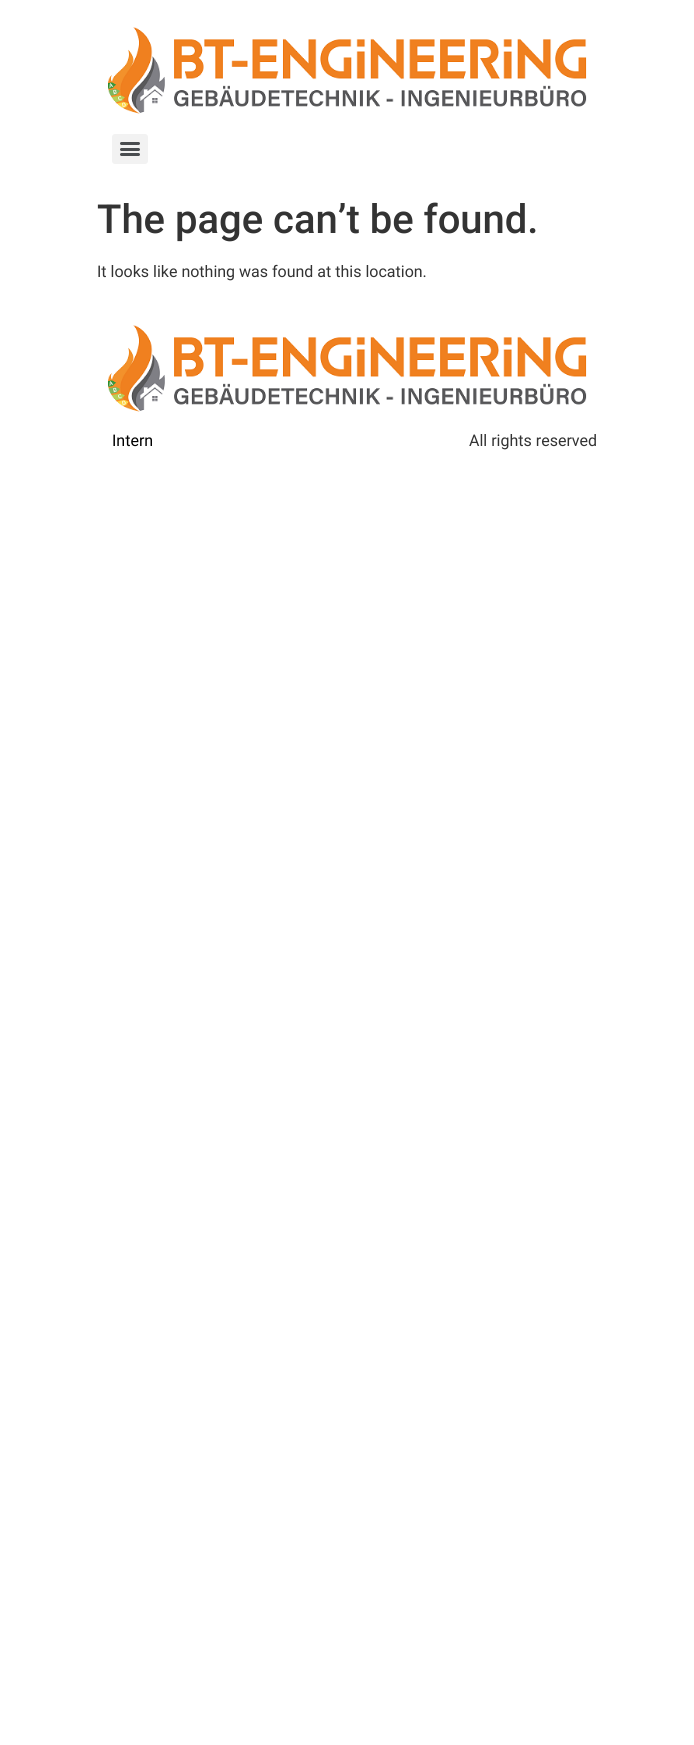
#include <cairo.h>
#include <math.h>
#include <stddef.h>

static cairo_t *c;
static void C(unsigned color){cairo_set_source_rgb(c, (color >> 16) / 255.0, (color >> 8 & 255) / 255.0, (color & 255) / 255.0);}
static void F(const char *family, double size, int italic, int bold){cairo_select_font_face(c, family, italic ? CAIRO_FONT_SLANT_ITALIC : CAIRO_FONT_SLANT_NORMAL,bold ? CAIRO_FONT_WEIGHT_BOLD : CAIRO_FONT_WEIGHT_NORMAL);cairo_set_font_size(c, size);}
static void T(double x, double y, const char *s){cairo_move_to(c, x, y);cairo_show_text(c, s);}
static void Q(double x, double y, double w, double h, double r){cairo_new_sub_path(c);cairo_arc(c, x + w - r, y + h - r, r, 0, M_PI / 2);cairo_arc(c, x + r, y + h - r, r, M_PI / 2, M_PI);cairo_arc(c, x + r, y + r, r, M_PI, 1.5 * M_PI);cairo_arc(c, x + w - r, y + r, r, 1.5 * M_PI, 2 * M_PI);cairo_close_path(c);}
static void I(const char *path, double x, double y, double w, double h){cairo_surface_t *image = cairo_image_surface_create_from_png(path);cairo_save(c);cairo_set_source_surface(c, image, x, y);cairo_rectangle(c, x, y, w, h);cairo_fill(c);cairo_restore(c);cairo_surface_destroy(image);}
int main(void) {
cairo_surface_t *surface = cairo_image_surface_create(CAIRO_FORMAT_RGB24, 694, 1745);
c = cairo_create(surface);
cairo_font_options_t *options = cairo_font_options_create();
cairo_font_options_set_hint_metrics(options, CAIRO_HINT_METRICS_OFF);
cairo_font_options_set_hint_style(options, CAIRO_HINT_STYLE_NONE);
cairo_set_font_options(c, options);
cairo_set_miter_limit(c, 4);
C(0xffffff);
cairo_paint(c);
I("1.png",108,27,479,87);
C(0xf2f2f2);
Q(112,134,36,30,3);
cairo_fill(c);
C(0x494c4f);
Q(120,148,20,3,1.5);
cairo_fill(c);
Q(120,142,20,3,1.5);
cairo_fill(c);
Q(120,153,20,3,1.5);
cairo_fill(c);
F("Roboto Medium",40,0,0);
C(0x333333);
T(97,233,"The page can’t be found.");
F("Roboto",16,0,0);
T(97,277,"It looks like nothing was found at this location.");
I("1.png",108,325,479,87);
C(0x000000);
T(112,446,"Intern");
C(0x333333);
T(469,446,"All rights reserved");
cairo_surface_write_to_png(surface, "o.png");
cairo_font_options_destroy(options);
cairo_destroy(c);
cairo_surface_destroy(surface);
return 0;
}
